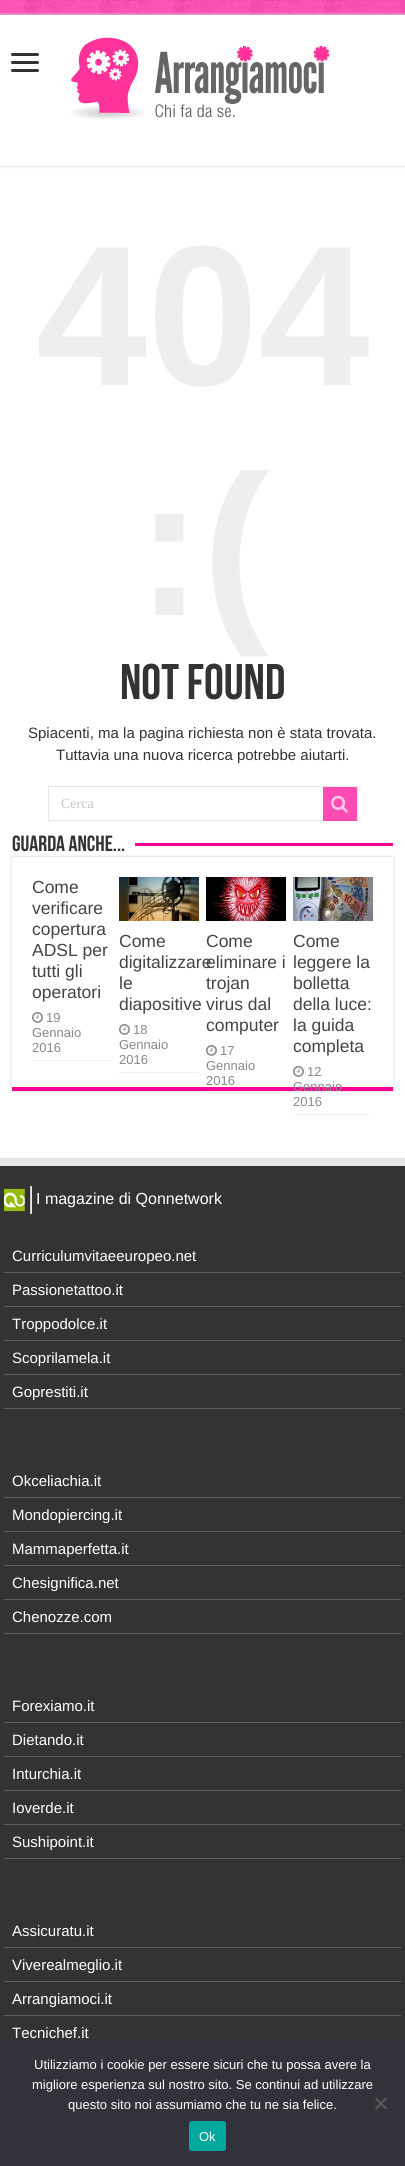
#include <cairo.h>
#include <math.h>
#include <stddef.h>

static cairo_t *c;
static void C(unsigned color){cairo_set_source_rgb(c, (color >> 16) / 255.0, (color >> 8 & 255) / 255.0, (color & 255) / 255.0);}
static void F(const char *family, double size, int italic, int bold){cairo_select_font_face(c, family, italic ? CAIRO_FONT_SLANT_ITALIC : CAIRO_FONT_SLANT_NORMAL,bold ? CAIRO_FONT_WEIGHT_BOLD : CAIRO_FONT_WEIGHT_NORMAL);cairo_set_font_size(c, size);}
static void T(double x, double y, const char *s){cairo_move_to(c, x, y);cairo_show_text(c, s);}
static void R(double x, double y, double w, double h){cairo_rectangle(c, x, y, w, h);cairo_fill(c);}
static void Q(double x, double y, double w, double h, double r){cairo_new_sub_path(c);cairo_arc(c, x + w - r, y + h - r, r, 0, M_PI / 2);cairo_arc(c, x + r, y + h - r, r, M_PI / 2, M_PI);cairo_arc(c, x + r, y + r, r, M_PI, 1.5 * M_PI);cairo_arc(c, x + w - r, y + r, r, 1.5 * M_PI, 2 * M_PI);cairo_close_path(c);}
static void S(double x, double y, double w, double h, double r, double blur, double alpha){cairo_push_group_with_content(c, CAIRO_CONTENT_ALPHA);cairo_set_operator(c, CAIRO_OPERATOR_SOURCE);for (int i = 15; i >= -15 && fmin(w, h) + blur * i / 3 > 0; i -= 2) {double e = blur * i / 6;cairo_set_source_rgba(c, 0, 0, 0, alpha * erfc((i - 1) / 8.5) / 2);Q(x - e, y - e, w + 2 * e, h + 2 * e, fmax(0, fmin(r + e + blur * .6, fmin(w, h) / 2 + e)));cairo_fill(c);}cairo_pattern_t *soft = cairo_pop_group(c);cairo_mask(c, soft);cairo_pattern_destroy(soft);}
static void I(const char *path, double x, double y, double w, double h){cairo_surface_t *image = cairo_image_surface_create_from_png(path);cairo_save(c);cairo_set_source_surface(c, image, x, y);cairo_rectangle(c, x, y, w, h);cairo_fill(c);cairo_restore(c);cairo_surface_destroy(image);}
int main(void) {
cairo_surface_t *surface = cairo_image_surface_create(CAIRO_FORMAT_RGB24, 405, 2166);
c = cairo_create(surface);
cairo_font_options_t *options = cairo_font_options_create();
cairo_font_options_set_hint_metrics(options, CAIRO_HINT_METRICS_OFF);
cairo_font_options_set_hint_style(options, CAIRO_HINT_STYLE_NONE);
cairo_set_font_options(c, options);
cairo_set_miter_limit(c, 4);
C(0xff0095);
cairo_paint(c);
I("1.png",0,0,405,15);
C(0xcacaca);
S(0,15,405,2076,0,1.5,1);
C(0xffffff);
R(0,15,405,1143);
cairo_save(c);
cairo_set_fill_rule(c,CAIRO_FILL_RULE_EVEN_ODD);
cairo_new_path(c);
cairo_move_to(c,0,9);
cairo_line_to(c,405,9);
cairo_line_to(c,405,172);
cairo_line_to(c,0,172);
cairo_close_path(c);
cairo_move_to(c,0,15);
cairo_line_to(c,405,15);
cairo_line_to(c,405,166);
cairo_line_to(c,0,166);
cairo_close_path(c);
cairo_clip(c);
C(0xcacaca);
S(0,15,405,151,0,1.5,1);
cairo_restore(c);
C(0x333333);
Q(11,53,28,3,1.5);
cairo_fill(c);
Q(11,61,28,3,1.5);
cairo_fill(c);
Q(11,69,28,3,1.5);
cairo_fill(c);
I("2.png",71,37,259,83);
F("Liberation Sans",200,0,1);
C(0xeeeeee);
T(36,385,"404");
T(136,615,":(");
F("Bebas Neue",50,0,1);
C(0x333333);
T(120,699,"Not Found");
F("Liberation Sans",15,0,0);
T(28,738,"Spiacenti, ma la pagina richiesta non è stata trovata.");
T(56,760,"Tuttavia una nuova ricerca potrebbe aiutarti.");
cairo_rectangle(c,48.5,786.5,309,34);
C(0xe8e8e8);
cairo_set_line_width(c,1);
cairo_stroke(c);
F("Liberation Serif",14,0,0);
C(0xc5c5c5);
T(61,808,"Cerca");
cairo_set_source_rgba(c,1,0,0.584,0.7);
R(323,787,34,34);
I("3.png",331,795,17,18);
cairo_save(c);
cairo_set_fill_rule(c,CAIRO_FILL_RULE_EVEN_ODD);
cairo_new_path(c);
cairo_move_to(c,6,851);
cairo_line_to(c,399,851);
cairo_line_to(c,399,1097);
cairo_line_to(c,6,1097);
cairo_close_path(c);
cairo_move_to(c,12,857);
cairo_line_to(c,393,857);
cairo_line_to(c,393,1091);
cairo_line_to(c,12,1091);
cairo_close_path(c);
cairo_clip(c);
C(0xcacaca);
S(12,857,381,234,0,1.5,1);
cairo_restore(c);
F("Bebas Neue",22,0,1);
C(0x333333);
T(12,851,"Guarda anche...");
C(0xff0095);
R(135,843,258,3);
R(12,1087,381,4);
F("Liberation Sans",17.5,0,0);
C(0x444444);
T(32,893,"Come");
T(32,914,"verificare");
T(32,935,"copertura");
T(32,956,"ADSL per");
T(32,977,"tutti gli");
T(32,998,"operatori");
C(0xf2f2f2);
R(32,1060,80,1);
I("4.png",32,1012,11,11);
F("Liberation Sans",13,0,0);
C(0x888888);
T(46,1022,"19");
T(32,1037,"Gennaio");
T(32,1052,"2016");
I("5.png",119,877,80,44);
F("Liberation Sans",17.5,0,0);
C(0x444444);
T(119,947,"Come");
T(119,968,"digitalizzare");
T(119,989,"le");
T(119,1010,"diapositive");
C(0xf2f2f2);
R(119,1072,80,1);
I("4.png",119,1024,11,11);
F("Liberation Sans",13,0,0);
C(0x888888);
T(133,1034,"18");
T(119,1049,"Gennaio");
T(119,1064,"2016");
C(0x000000);
R(206,877,80,44);
I("6.png",212,877,70,44);
F("Liberation Sans",17.5,0,0);
C(0x444444);
T(206,947,"Come");
T(206,968,"eliminare i");
T(206,989,"trojan");
T(206,1010,"virus dal");
T(206,1031,"computer");
C(0xf2f2f2);
R(206,1093,80,1);
I("4.png",206,1045,11,11);
F("Liberation Sans",13,0,0);
C(0x888888);
T(220,1055,"17");
T(206,1070,"Gennaio");
T(206,1085,"2016");
I("7.png",293,877,80,44);
F("Liberation Sans",17.5,0,0);
C(0x444444);
T(293,947,"Come");
T(293,968,"leggere la");
T(293,989,"bolletta");
T(293,1010,"della luce:");
T(293,1031,"la guida");
T(293,1052,"completa");
C(0xf2f2f2);
R(293,1114,80,1);
I("4.png",293,1066,11,11);
F("Liberation Sans",13,0,0);
C(0x888888);
T(307,1076,"12");
T(293,1091,"Gennaio");
T(293,1106,"2016");
C(0xe6e6e6);
R(0,1158,405,8);
C(0x333333);
R(0,1166,405,874);
I("8.png",4,1186,28,28);
F("Liberation Sans",16,0,0);
C(0xffffff);
T(36,1204,"I magazine di Qonnetwork");
C(0x5e5e5e);
R(4,1272,397,1);
F("Liberation Sans",15,0,0);
C(0xffffff);
T(12,1261,"Curriculumvitaeeuropeo.net");
C(0x5e5e5e);
R(4,1306,397,1);
C(0xffffff);
T(12,1295,"Passionetattoo.it");
C(0x5e5e5e);
R(4,1340,397,1);
C(0xffffff);
T(12,1329,"Troppodolce.it");
C(0x5e5e5e);
R(4,1374,397,1);
C(0xffffff);
T(12,1363,"Scoprilamela.it");
C(0x5e5e5e);
R(4,1408,397,1);
C(0xffffff);
T(12,1397,"Goprestiti.it");
C(0x5e5e5e);
R(4,1497,397,1);
C(0xffffff);
T(12,1486,"Okceliachia.it");
C(0x5e5e5e);
R(4,1531,397,1);
C(0xffffff);
T(12,1520,"Mondopiercing.it");
C(0x5e5e5e);
R(4,1565,397,1);
C(0xffffff);
T(12,1554,"Mammaperfetta.it");
C(0x5e5e5e);
R(4,1599,397,1);
C(0xffffff);
T(12,1588,"Chesignifica.net");
C(0x5e5e5e);
R(4,1633,397,1);
C(0xffffff);
T(12,1622,"Chenozze.com");
C(0x5e5e5e);
R(4,1722,397,1);
C(0xffffff);
T(12,1711,"Forexiamo.it");
C(0x5e5e5e);
R(4,1756,397,1);
C(0xffffff);
T(12,1745,"Dietando.it");
C(0x5e5e5e);
R(4,1790,397,1);
C(0xffffff);
T(12,1779,"Inturchia.it");
C(0x5e5e5e);
R(4,1824,397,1);
C(0xffffff);
T(12,1813,"Ioverde.it");
C(0x5e5e5e);
R(4,1858,397,1);
C(0xffffff);
T(12,1847,"Sushipoint.it");
C(0x5e5e5e);
R(4,1947,397,1);
C(0xffffff);
T(12,1936,"Assicuratu.it");
C(0x5e5e5e);
R(4,1981,397,1);
C(0xffffff);
T(12,1970,"Viverealmeglio.it");
C(0x5e5e5e);
R(4,2015,397,1);
C(0xffffff);
T(12,2004,"Arrangiamoci.it");
T(12,2038,"Tecnichef.it");
C(0x32323a);
R(0,2040,405,126);
F("Liberation Sans",13,0,0);
C(0xffffff);
T(34,2069,"Utilizziamo i cookie per essere sicuri che tu possa avere la");
T(32,2089,"migliore esperienza sul nostro sito. Se continui ad utilizzare");
T(68,2109,"questo sito noi assumiamo che tu ne sia felice.");
C(0x59595d);
cairo_new_path(c);
cairo_move_to(c,385.5,2097.5);
cairo_line_to(c,387,2099);
cairo_line_to(c,376.5,2109.5);
cairo_line_to(c,375,2108);
cairo_close_path(c);
cairo_fill(c);
cairo_new_path(c);
cairo_move_to(c,375,2099);
cairo_line_to(c,376.5,2097.5);
cairo_line_to(c,387,2108);
cairo_line_to(c,385.5,2109.5);
cairo_close_path(c);
cairo_fill(c);
C(0x00a99d);
Q(189,2121,37,30,3);
cairo_fill(c);
C(0xffffff);
T(199,2141,"Ok");
cairo_surface_write_to_png(surface, "o.png");
cairo_font_options_destroy(options);
cairo_destroy(c);
cairo_surface_destroy(surface);
return 0;
}
